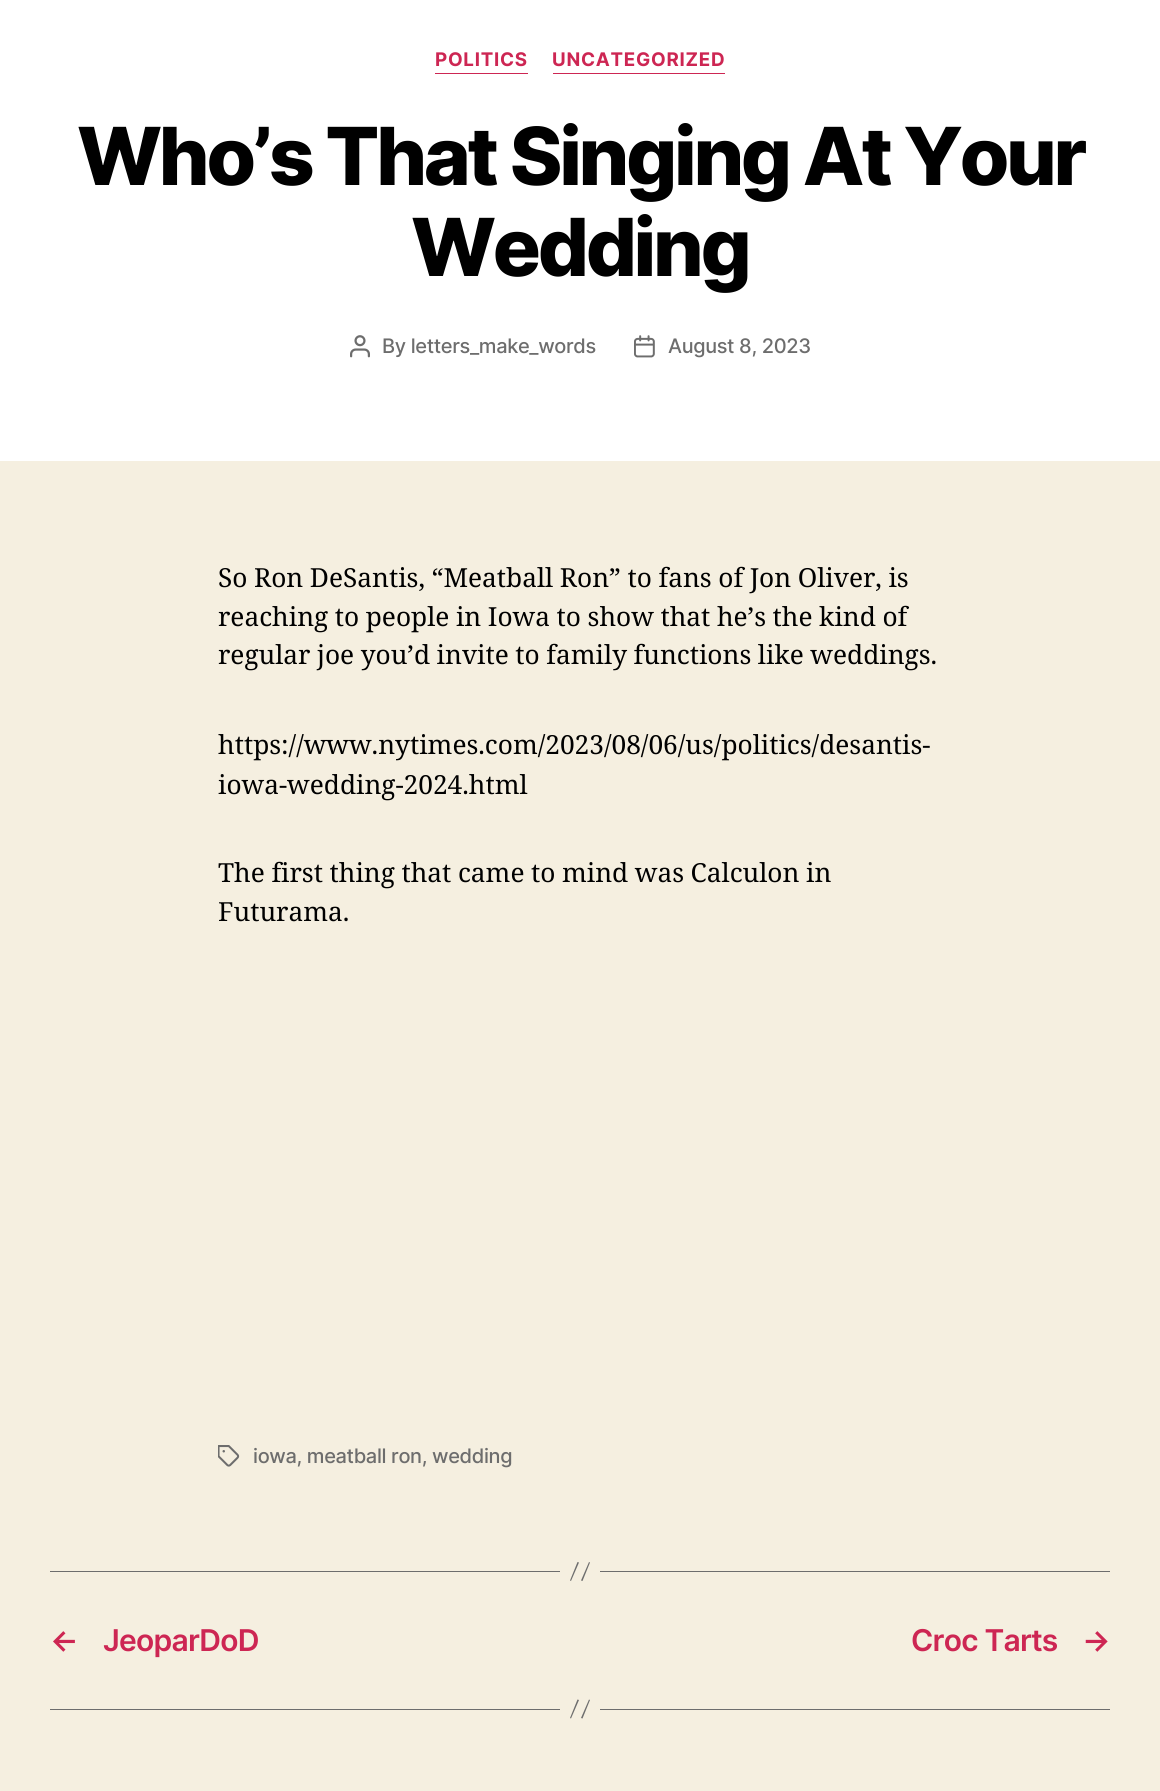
#include <cairo.h>
#include <math.h>
#include <stddef.h>

static cairo_t *c;
static void C(unsigned color){cairo_set_source_rgb(c, (color >> 16) / 255.0, (color >> 8 & 255) / 255.0, (color & 255) / 255.0);}
static void F(const char *family, double size, int italic, int bold){cairo_select_font_face(c, family, italic ? CAIRO_FONT_SLANT_ITALIC : CAIRO_FONT_SLANT_NORMAL,bold ? CAIRO_FONT_WEIGHT_BOLD : CAIRO_FONT_WEIGHT_NORMAL);cairo_set_font_size(c, size);}
static void T(double x, double y, const char *s){cairo_move_to(c, x, y);cairo_show_text(c, s);}
static void L(double x, double y, const char *s, double letter, double word){cairo_move_to(c, x, y);while (*s) {char ch[5] = {0};int n = 0;do ch[n++] = *s++; while ((*s & 0xC0) == 0x80);cairo_show_text(c, ch);cairo_rel_move_to(c, letter + word * (*ch == ' '), 0);}}
static void R(double x, double y, double w, double h){cairo_rectangle(c, x, y, w, h);cairo_fill(c);}
static void I(const char *path, double x, double y, double w, double h){cairo_surface_t *image = cairo_image_surface_create_from_png(path);cairo_save(c);cairo_set_source_surface(c, image, x, y);cairo_rectangle(c, x, y, w, h);cairo_fill(c);cairo_restore(c);cairo_surface_destroy(image);}
int main(void) {
cairo_surface_t *surface = cairo_image_surface_create(CAIRO_FORMAT_RGB24, 1160, 1791);
c = cairo_create(surface);
cairo_font_options_t *options = cairo_font_options_create();
cairo_font_options_set_hint_metrics(options, CAIRO_HINT_METRICS_OFF);
cairo_font_options_set_hint_style(options, CAIRO_HINT_STYLE_NONE);
cairo_set_font_options(c, options);
cairo_set_miter_limit(c, 4);
C(0xf5efe0);
cairo_paint(c);
C(0xffffff);
R(0,0,1160,461);
C(0xcd2653);
R(435,73,93,1);
F("Inter",18.75,0,1);
L(435,66,"POLITICS",.75,0);
R(553,73,172,1);
L(552,66,"UNCATEGORIZED",.75,0);
F("Inter ExtraBold",80,0,0);
C(0x000000);
L(77,185,"Who’s That Singing At Your",-3.3,0);
L(411,276,"Wedding",-3.3,0);
I("1.png",350,335,20,23);
F("Inter Medium",20,0,0);
C(0x6d6d6d);
L(382,353,"By letters_make_words",-.35,0);
I("2.png",634,335,21,23);
L(668,353,"August 8, 2023",-.35,0);
F("Noto Serif",26.25,0,0);
C(0x000000);
L(218,587,"So Ron DeSantis, “Meatball Ron” to fans of Jon Oliver, is",0,-.25);
L(218,626,"reaching to people in Iowa to show that he’s the kind of",0,-.25);
L(218,664,"regular joe you’d invite to family functions like weddings.",0,-.25);
T(218,754,"https://www.nytimes.com/2023/08/06/us/politics/desantis-");
T(218,794,"iowa-wedding-2024.html");
L(218,882,"The first thing that came to mind was Calculon in",0,-.25);
T(218,921,"Futurama.");
I("3.png",218,1445,22,22);
F("Inter Medium",20,0,0);
C(0x6d6d6d);
L(253,1463,"iowa, meatball ron, wedding",-.35,0);
R(600,1571,510,1);
R(50,1571,510,1);
cairo_new_path(c);
cairo_move_to(c,577.5,1562);
cairo_line_to(c,579,1562.5);
cairo_line_to(c,571,1581);
cairo_line_to(c,570,1580.5);
cairo_close_path(c);
cairo_move_to(c,589,1562);
cairo_line_to(c,590,1562.5);
cairo_line_to(c,582.5,1581);
cairo_line_to(c,581,1580.5);
cairo_close_path(c);
cairo_fill(c);
F("Inter SemiBold",30,0,0);
C(0xcd2653);
L(50,1651,"←",-.75,0);
L(103,1651,"JeoparDoD",-.75,0);
L(911,1651,"Croc Tarts",-.75,0);
L(1082,1651,"→",-.75,0);
C(0x6d6d6d);
R(600,1709,510,1);
R(50,1709,510,1);
cairo_new_path(c);
cairo_move_to(c,577.5,1699.5);
cairo_line_to(c,579,1700);
cairo_line_to(c,571,1718.5);
cairo_line_to(c,570,1718);
cairo_close_path(c);
cairo_move_to(c,589,1699.5);
cairo_line_to(c,590,1700);
cairo_line_to(c,582.5,1718.5);
cairo_line_to(c,581,1718);
cairo_close_path(c);
cairo_fill(c);
cairo_surface_write_to_png(surface, "o.png");
cairo_font_options_destroy(options);
cairo_destroy(c);
cairo_surface_destroy(surface);
return 0;
}
